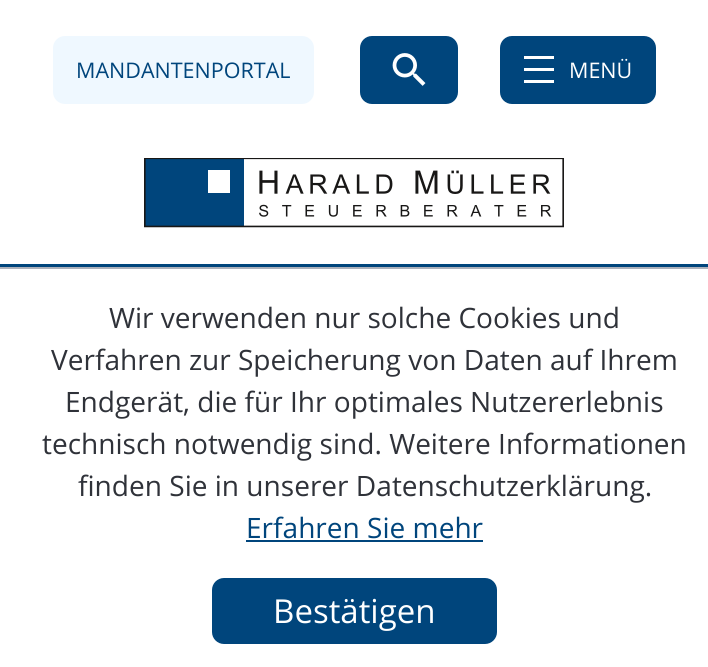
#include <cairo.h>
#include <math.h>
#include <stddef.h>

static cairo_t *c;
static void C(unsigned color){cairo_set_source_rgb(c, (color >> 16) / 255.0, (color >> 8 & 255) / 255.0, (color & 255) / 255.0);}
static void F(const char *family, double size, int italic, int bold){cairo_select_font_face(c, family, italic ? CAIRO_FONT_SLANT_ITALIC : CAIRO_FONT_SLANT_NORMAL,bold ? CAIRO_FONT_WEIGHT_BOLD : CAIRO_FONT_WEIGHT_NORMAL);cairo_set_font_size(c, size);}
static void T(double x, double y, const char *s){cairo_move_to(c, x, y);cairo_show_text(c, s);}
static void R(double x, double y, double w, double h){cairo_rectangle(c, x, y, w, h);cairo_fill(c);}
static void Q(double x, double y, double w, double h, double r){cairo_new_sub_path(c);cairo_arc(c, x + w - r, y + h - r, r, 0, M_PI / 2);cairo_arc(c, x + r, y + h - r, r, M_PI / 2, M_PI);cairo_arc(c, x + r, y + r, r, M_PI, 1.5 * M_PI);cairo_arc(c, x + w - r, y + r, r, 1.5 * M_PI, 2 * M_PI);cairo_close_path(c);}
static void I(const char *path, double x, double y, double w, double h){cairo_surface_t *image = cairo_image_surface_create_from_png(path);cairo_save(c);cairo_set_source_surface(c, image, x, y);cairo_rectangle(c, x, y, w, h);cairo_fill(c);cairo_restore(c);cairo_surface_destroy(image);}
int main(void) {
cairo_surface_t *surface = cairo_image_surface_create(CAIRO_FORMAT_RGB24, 708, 667);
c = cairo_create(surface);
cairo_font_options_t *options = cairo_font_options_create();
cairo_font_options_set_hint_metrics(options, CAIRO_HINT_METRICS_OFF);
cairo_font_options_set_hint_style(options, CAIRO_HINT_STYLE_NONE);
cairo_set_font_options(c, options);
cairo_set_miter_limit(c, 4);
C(0xffffff);
cairo_paint(c);
C(0xeff8ff);
Q(54,37,259,66,11);
cairo_fill_preserve(c);
cairo_stroke(c);
F("Open Sans",21.5,0,0);
C(0x00457c);
T(76,78,"MANDANTENPORTAL");
Q(361,37,96,66,11);
cairo_fill_preserve(c);
cairo_stroke(c);
I("1.png",392,53,34,33);
Q(501,37,154,66,11);
cairo_fill_preserve(c);
cairo_stroke(c);
C(0xffffff);
R(524,56,30,3);
R(524,68,30,3);
R(524,80,30,3);
T(569,78,"MENÜ");
I("2.png",144,158,420,70);
C(0x00457c);
R(0,264,708,3);
C(0xacb1bb);
R(0,267,708,2);
F("Open Sans",28.05,0,0);
C(0x2f3239);
T(109,328,"Wir verwenden nur solche Cookies und");
T(51,370,"Verfahren zur Speicherung von Daten auf Ihrem");
T(65,412,"Endgerät, die für Ihr optimales Nutzererlebnis");
T(42,454,"technisch notwendig sind. Weitere Informationen");
T(78,496,"finden Sie in unserer Datenschutzerklärung.");
C(0x00457c);
T(246,538,"Erfahren Sie mehr");
R(246,540,237,2);
Q(213,579,283,64,11);
cairo_fill_preserve(c);
cairo_stroke(c);
F("Open Sans",33,0,0);
C(0xffffff);
T(273,623,"Bestätigen");
cairo_surface_write_to_png(surface, "o.png");
cairo_font_options_destroy(options);
cairo_destroy(c);
cairo_surface_destroy(surface);
return 0;
}
